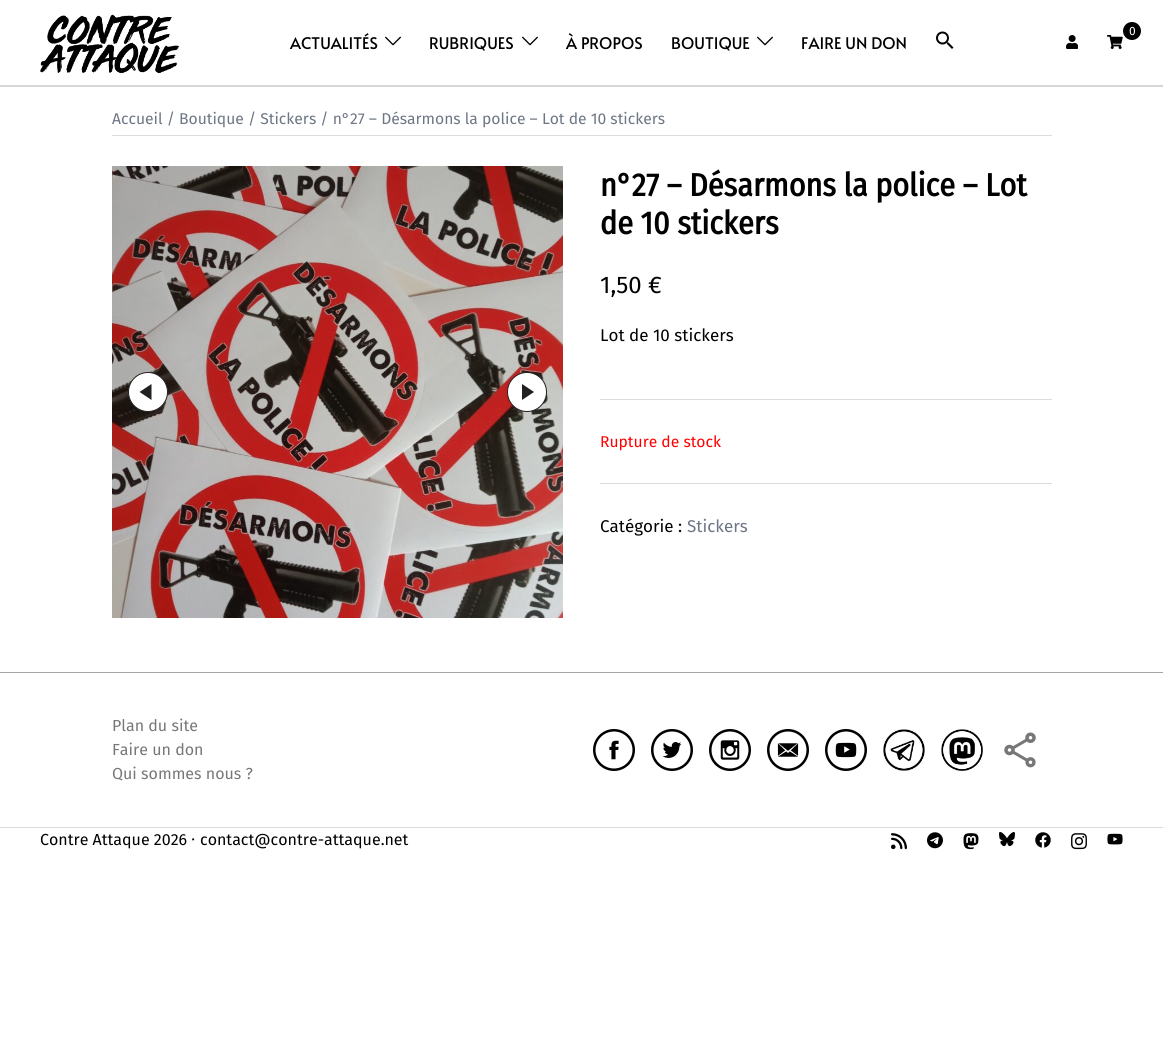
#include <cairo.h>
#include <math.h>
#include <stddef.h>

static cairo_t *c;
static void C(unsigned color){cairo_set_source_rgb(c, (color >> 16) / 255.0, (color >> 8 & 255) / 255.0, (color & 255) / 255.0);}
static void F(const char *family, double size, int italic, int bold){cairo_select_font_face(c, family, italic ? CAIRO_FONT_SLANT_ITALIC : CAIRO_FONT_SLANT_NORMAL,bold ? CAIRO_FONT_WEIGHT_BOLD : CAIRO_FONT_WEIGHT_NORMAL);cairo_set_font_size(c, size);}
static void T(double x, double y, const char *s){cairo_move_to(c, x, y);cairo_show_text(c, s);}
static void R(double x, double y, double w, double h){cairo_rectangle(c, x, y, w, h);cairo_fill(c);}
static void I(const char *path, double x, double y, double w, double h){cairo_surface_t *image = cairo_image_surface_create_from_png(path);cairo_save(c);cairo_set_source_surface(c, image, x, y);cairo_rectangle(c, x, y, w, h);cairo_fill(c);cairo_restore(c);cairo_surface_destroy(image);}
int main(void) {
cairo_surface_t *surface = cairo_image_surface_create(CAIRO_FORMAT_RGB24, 1163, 1043);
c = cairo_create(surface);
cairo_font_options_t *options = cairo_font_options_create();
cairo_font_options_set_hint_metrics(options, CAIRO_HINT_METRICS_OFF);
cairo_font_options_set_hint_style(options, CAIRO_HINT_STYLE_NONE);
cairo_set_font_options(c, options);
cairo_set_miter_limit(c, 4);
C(0xffffff);
cairo_paint(c);
C(0xd6d6d6);
R(0,85,1163,2);
I("1.png",40,14,139,60);
C(0x000000);
cairo_arc(c,1132,31,9,0,2 * M_PI);
cairo_fill(c);
F("Fira Sans",12,0,0);
C(0xffffff);
T(1129,35,"0");
I("2.png",1107,35,16,14);
I("3.png",1066,35,12,14);
F("Alata",16,0,0);
C(0x000000);
T(290,49,"ACTUALITÉS");
I("4.png",385,36,16,10);
T(429,49,"RUBRIQUES");
I("4.png",522,36,16,10);
T(566,49,"À PROPOS");
T(671,49,"BOUTIQUE");
I("4.png",757,36,16,10);
T(801,49,"FAIRE UN DON");
I("5.png",936,31,18,18);
C(0xdbdbdb);
R(112,135,940,1);
F("Fira Sans",15.65,0,0);
C(0x6d7685);
T(112,124,"Accueil / Boutique / Stickers / n°27 – Désarmons la police – Lot de 10 stickers");
I("6.png",112,166,451,452);
C(0xffffff);
cairo_arc(c,148,392,19.5,0,2 * M_PI);
cairo_fill_preserve(c);
C(0x212121);
cairo_set_line_width(c,1);
cairo_stroke(c);
cairo_new_path(c);
cairo_move_to(c,151.5,384);
cairo_line_to(c,151.5,400);
cairo_line_to(c,139.5,392);
cairo_close_path(c);
cairo_fill(c);
C(0xffffff);
cairo_arc(c,527,392,19.5,0,2 * M_PI);
cairo_fill_preserve(c);
C(0x212121);
cairo_stroke(c);
cairo_new_path(c);
cairo_move_to(c,522,400);
cairo_line_to(c,522,384);
cairo_line_to(c,534,392);
cairo_close_path(c);
cairo_fill(c);
F("Fira Sans Condensed",32,0,1);
C(0x000000);
T(600,196,"n°27 – Désarmons la police – Lot");
T(600,234,"de 10 stickers");
F("Fira Sans",24,0,0);
T(600,293,"1,50 €");
C(0xdbdbdb);
R(600,399,452,1);
F("Fira Sans",17,0,0);
C(0x000000);
T(600,341,"Lot de 10 stickers");
F("Fira Sans",15.65,0,0);
C(0xff0000);
T(600,447,"Rupture de stock");
C(0xdbdbdb);
R(600,483,452,1);
F("Fira Sans",17,0,0);
C(0x000000);
T(600,532,"Catégorie :");
C(0x6d7685);
T(687,532,"Stickers");
C(0xa5a5a5);
R(0,672,1163,1);
F("Fira Sans",16,0,0);
C(0x777777);
T(112,731,"Plan du site");
T(112,755,"Faire un don");
T(112,779,"Qui sommes nous ?");
I("7.png",593,729,42,42);
I("8.png",651,729,42,42);
I("9.png",709,729,42,42);
I("10.png",767,729,42,42);
I("11.png",825,729,42,42);
I("12.png",883,729,42,42);
I("13.png",941,729,42,42);
I("14.png",1004,732,32,36);
C(0xdbdbdb);
R(0,827,1163,1);
C(0x000000);
T(40,845,"Contre Attaque 2026");
F("Noto Sans",16,0,0);
T(191,845,"⸱");
F("Fira Sans",16,0,0);
T(200,845,"contact@contre-attaque.net");
I("15.png",891,833,16,17);
I("16.png",927,832,16,17);
I("17.png",963,833,16,17);
I("18.png",999,832,16,15);
I("19.png",1035,832,16,16);
I("20.png",1071,833,16,17);
I("21.png",1107,833,16,12);
cairo_surface_write_to_png(surface, "o.png");
cairo_font_options_destroy(options);
cairo_destroy(c);
cairo_surface_destroy(surface);
return 0;
}
